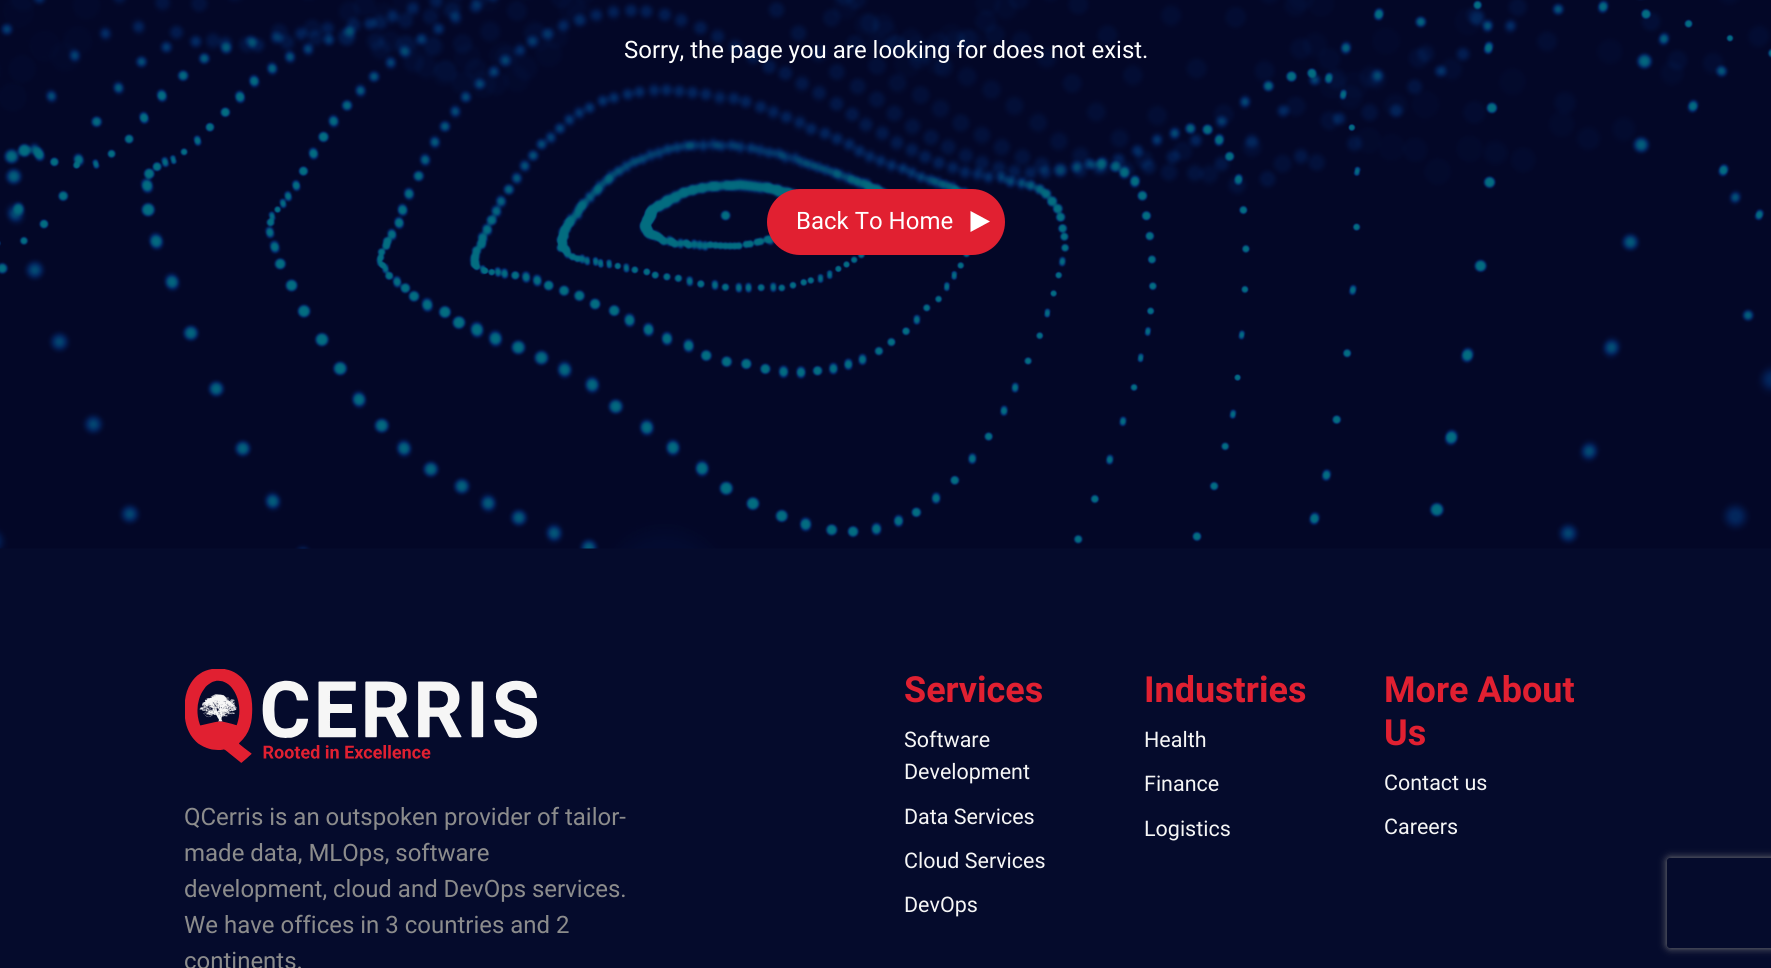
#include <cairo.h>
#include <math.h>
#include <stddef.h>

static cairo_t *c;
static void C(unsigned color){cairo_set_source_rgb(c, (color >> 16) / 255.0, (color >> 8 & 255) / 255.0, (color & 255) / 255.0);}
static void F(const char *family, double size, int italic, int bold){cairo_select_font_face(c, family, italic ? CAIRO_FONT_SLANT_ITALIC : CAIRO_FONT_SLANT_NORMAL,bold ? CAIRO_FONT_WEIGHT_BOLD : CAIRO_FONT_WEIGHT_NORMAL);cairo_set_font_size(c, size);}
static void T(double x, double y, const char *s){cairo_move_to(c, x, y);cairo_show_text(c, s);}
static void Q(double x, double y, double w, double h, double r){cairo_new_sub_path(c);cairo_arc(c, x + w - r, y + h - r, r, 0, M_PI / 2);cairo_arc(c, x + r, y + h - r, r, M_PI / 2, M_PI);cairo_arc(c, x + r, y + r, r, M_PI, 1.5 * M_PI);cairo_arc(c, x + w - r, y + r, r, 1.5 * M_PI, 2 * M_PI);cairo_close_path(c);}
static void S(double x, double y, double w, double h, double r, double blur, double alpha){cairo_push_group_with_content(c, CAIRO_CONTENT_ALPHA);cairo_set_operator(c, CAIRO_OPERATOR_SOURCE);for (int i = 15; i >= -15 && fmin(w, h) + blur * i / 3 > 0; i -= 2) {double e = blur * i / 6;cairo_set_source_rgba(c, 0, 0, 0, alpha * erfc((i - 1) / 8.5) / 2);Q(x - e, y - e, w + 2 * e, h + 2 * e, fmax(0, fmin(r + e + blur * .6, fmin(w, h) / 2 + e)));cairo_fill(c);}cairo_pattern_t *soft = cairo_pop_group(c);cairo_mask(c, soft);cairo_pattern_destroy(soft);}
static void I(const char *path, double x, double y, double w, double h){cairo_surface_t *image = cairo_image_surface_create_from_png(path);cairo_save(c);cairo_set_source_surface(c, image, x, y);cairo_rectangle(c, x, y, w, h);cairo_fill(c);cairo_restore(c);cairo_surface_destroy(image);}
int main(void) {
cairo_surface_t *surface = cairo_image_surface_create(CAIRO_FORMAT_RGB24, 1771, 968);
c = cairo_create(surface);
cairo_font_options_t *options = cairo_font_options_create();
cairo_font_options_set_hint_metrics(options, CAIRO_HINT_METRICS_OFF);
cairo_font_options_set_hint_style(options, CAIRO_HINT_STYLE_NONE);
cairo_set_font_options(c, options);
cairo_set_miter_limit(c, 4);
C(0x050b2c);
cairo_paint(c);
I("1.png",0,0,1771,549);
F("Roboto",24,0,0);
C(0xffffff);
T(624,58,"Sorry, the page you are looking for does not exist.");
C(0xe12031);
Q(767,189,238,66,33);
cairo_fill(c);
C(0xffffff);
T(796,229,"Back To Home");
cairo_new_path(c);
cairo_move_to(c,970.5,232);
cairo_line_to(c,970.5,211);
cairo_line_to(c,990,221.5);
cairo_close_path(c);
cairo_fill(c);
F("Roboto",36,0,1);
C(0xe12031);
T(904,702,"Services");
F("Roboto",21.5,0,0);
C(0xf6f6f6);
T(904,747,"Software");
T(904,779,"Development");
T(904,824,"Data Services");
T(904,868,"Cloud Services");
T(904,912,"DevOps");
F("Roboto",36,0,1);
C(0xe12031);
T(1144,702,"Industries");
F("Roboto",21.5,0,0);
C(0xf6f6f6);
T(1144,747,"Health");
T(1144,791,"Finance");
T(1144,836,"Logistics");
F("Roboto",36,0,1);
C(0xe12031);
T(1384,702,"More About");
T(1384,745,"Us");
F("Roboto",21.5,0,0);
C(0xf6f6f6);
T(1384,790,"Contact us");
T(1384,834,"Careers");
I("2.png",185,669,352,94);
F("Roboto",24,0,0);
C(0x8c8c8c);
T(184,825,"QCerris is an outspoken provider of tailor-");
T(184,861,"made data, MLOps, software");
T(184,897,"development, cloud and DevOps services.");
T(184,933,"We have offices in 3 countries and 2");
T(184,969,"continents.");
cairo_save(c);
cairo_set_fill_rule(c,CAIRO_FILL_RULE_EVEN_ODD);
cairo_new_path(c);
cairo_move_to(c,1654,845);
cairo_line_to(c,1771,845);
cairo_line_to(c,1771,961);
cairo_line_to(c,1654,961);
cairo_close_path(c);
cairo_move_to(c,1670,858);
cairo_line_to(c,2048,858);
cairo_curve_to(c,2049.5,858,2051,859.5,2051,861);
cairo_line_to(c,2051,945);
cairo_curve_to(c,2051,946.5,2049.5,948,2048,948);
cairo_line_to(c,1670,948);
cairo_curve_to(c,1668.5,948,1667,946.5,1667,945);
cairo_line_to(c,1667,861);
cairo_curve_to(c,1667,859.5,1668.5,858,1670,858);
cairo_close_path(c);
cairo_clip(c);
C(0x808080);
S(1667,858,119,90,3,4,1);
cairo_restore(c);
cairo_surface_write_to_png(surface, "o.png");
cairo_font_options_destroy(options);
cairo_destroy(c);
cairo_surface_destroy(surface);
return 0;
}
